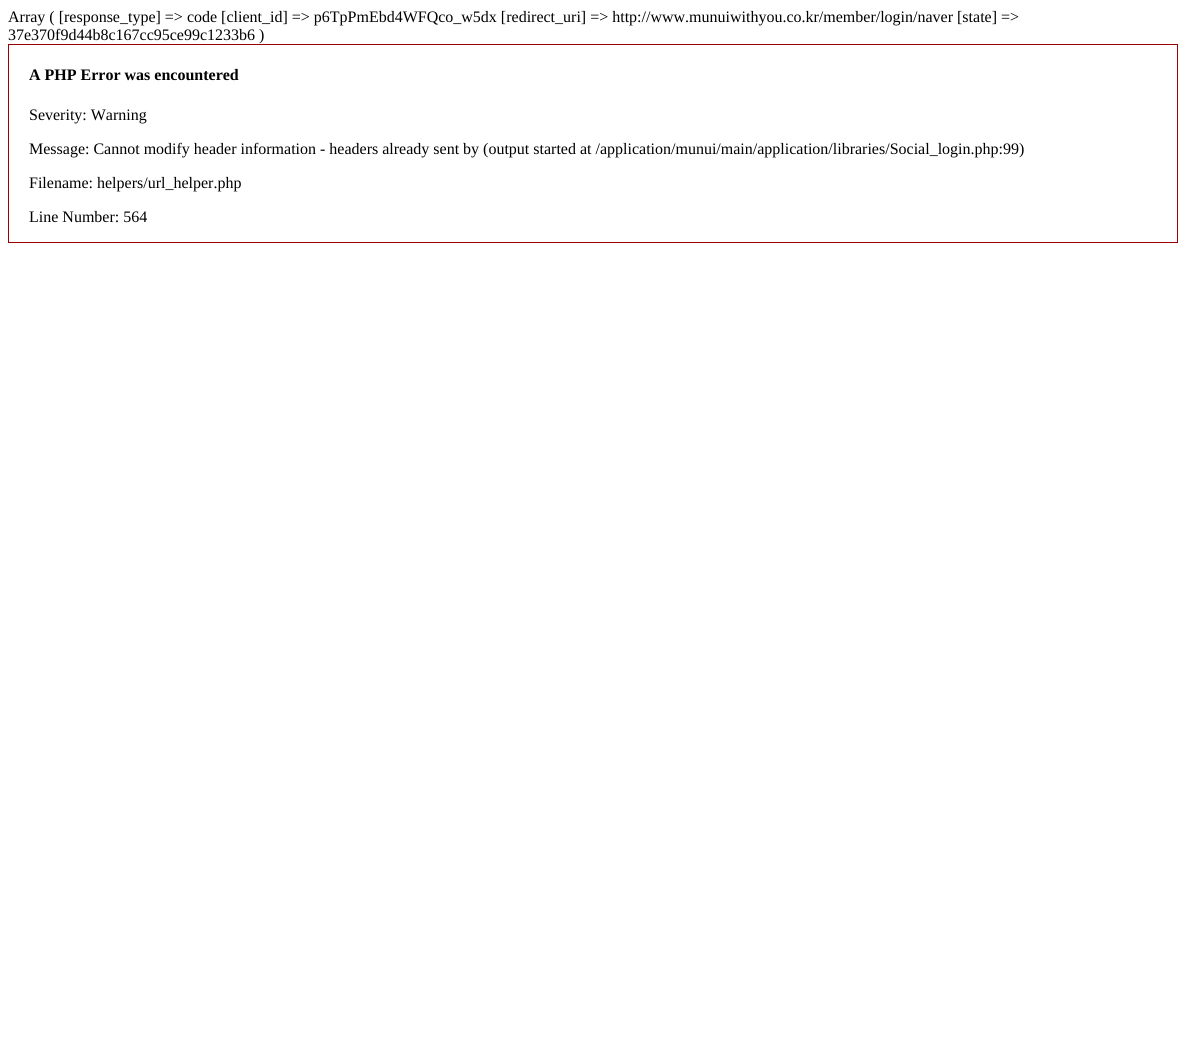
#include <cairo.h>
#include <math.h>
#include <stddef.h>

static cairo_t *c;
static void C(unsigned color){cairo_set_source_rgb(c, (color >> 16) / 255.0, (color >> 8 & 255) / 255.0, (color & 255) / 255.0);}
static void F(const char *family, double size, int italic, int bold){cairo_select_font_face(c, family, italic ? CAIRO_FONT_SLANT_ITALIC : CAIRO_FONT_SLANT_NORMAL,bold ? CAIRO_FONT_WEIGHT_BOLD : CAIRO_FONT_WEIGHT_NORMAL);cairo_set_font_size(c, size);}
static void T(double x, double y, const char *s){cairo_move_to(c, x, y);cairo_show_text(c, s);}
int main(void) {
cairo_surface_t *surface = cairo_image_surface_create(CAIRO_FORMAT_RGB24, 1186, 1051);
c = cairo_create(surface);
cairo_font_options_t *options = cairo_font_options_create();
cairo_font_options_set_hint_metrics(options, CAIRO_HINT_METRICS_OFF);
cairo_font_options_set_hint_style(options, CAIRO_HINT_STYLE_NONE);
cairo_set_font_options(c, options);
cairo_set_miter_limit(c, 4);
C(0xffffff);
cairo_paint(c);
F("Liberation Serif",16,0,0);
C(0x000000);
T(8,22,"Array ( [response_type] => code [client_id] => p6TpPmEbd4WFQco_w5dx [redirect_uri] => http://www.munuiwithyou.co.kr/member/login/naver [state] =>");
T(8,40,"37e370f9d44b8c167cc95ce99c1233b6 )");
cairo_rectangle(c,8.5,44.5,1169,198);
C(0x990000);
cairo_set_line_width(c,1);
cairo_stroke(c);
F("Liberation Serif",16,0,1);
C(0x000000);
T(29,80,"A PHP Error was encountered");
F("Liberation Serif",16,0,0);
T(29,120,"Severity: Warning");
T(29,154,"Message: Cannot modify header information - headers already sent by (output started at /application/munui/main/application/libraries/Social_login.php:99)");
T(29,188,"Filename: helpers/url_helper.php");
T(29,222,"Line Number: 564");
cairo_surface_write_to_png(surface, "o.png");
cairo_font_options_destroy(options);
cairo_destroy(c);
cairo_surface_destroy(surface);
return 0;
}
